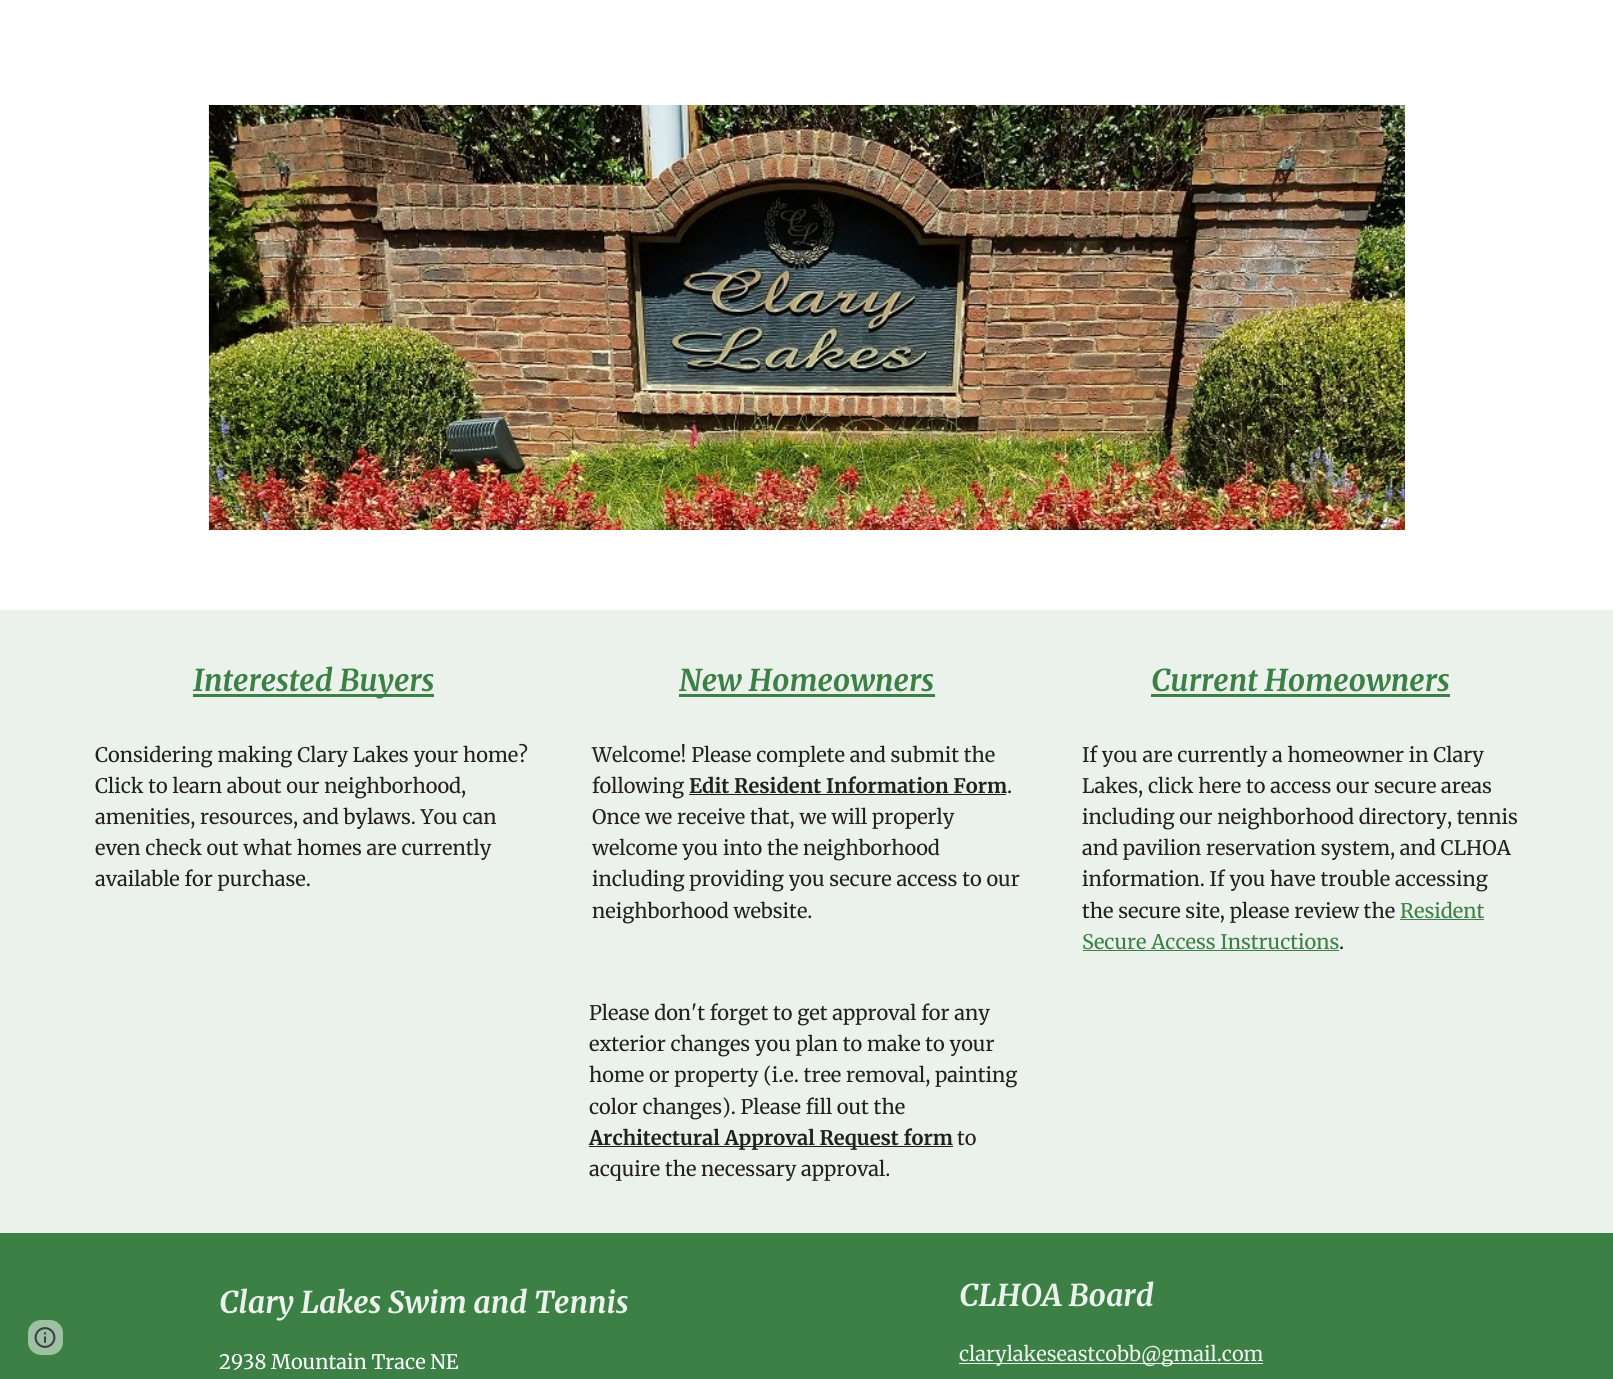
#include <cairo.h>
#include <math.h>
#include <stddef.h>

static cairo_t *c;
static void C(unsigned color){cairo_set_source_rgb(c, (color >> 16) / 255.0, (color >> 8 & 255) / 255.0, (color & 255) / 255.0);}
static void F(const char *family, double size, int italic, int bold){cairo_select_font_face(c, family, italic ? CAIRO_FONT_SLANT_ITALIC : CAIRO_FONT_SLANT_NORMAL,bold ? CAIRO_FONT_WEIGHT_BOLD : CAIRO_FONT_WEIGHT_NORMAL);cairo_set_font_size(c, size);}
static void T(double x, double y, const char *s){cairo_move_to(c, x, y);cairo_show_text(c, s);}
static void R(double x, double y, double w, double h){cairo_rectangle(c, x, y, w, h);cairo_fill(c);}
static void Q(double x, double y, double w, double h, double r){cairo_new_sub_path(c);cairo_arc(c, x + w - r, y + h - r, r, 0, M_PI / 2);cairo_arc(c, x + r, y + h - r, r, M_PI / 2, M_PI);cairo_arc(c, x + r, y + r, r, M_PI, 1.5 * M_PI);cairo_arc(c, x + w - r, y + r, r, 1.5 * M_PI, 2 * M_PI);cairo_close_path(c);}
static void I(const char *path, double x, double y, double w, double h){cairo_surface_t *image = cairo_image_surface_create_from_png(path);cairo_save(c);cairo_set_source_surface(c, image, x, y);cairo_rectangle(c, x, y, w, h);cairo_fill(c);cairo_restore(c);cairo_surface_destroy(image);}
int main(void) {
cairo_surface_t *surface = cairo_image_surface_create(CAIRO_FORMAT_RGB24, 1613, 1379);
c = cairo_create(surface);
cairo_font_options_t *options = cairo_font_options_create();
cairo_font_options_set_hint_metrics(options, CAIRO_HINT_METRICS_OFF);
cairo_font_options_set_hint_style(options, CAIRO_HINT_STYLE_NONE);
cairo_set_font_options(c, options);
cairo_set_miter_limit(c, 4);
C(0xffffff);
cairo_paint(c);
I("1.png",208,105,1197,425);
C(0xebf2ec);
R(0,610,1613,623);
C(0x3c8046);
R(193,694,241,3);
F("Merriweather",30,1,1);
T(193,691,"Interested Buyers");
F("Merriweather",20,0,0);
C(0x212121);
T(95,762,"Considering making Clary Lakes your home?");
T(95,793,"Click to learn about our neighborhood,");
T(95,824,"amenities, resources, and bylaws. You can");
T(95,855,"even check out what homes are currently");
T(95,886,"available for purchase.");
F("Merriweather",30,1,1);
C(0x3c8046);
T(679,691,"New Homeowners");
R(679,694,256,3);
F("Merriweather",20,0,0);
C(0x212121);
T(592,762,"Welcome! Please complete and submit the");
T(592,793,"following");
F("Merriweather",20,0,1);
T(689,793,"Edit Resident Information Form");
R(689,794,317,1);
F("Merriweather",20,0,0);
T(1007,793,".");
T(592,824,"Once we receive that, we will properly");
T(592,855,"welcome you into the neighborhood");
T(592,886,"including providing you secure access to our");
T(592,918,"neighborhood website.");
T(589,1020,"Please don't forget to get approval for any");
T(589,1051,"exterior changes you plan to make to your");
T(589,1082,"home or property (i.e. tree removal, painting");
T(589,1114,"color changes). Please fill out the");
R(589,1146,364,1);
F("Merriweather",20,0,1);
T(589,1145,"Architectural Approval Request form");
F("Merriweather",20,0,0);
T(957,1145,"to");
T(589,1176,"acquire the necessary approval.");
F("Merriweather",30,1,1);
C(0x3c8046);
T(1151,691,"Current Homeowners");
R(1151,694,299,3);
F("Merriweather",20,0,0);
C(0x212121);
T(1082,762,"If you are currently a homeowner in Clary");
T(1082,793,"Lakes, click here to access our secure areas");
T(1082,824,"including our neighborhood directory, tennis");
T(1082,855,"and pavilion reservation system, and CLHOA");
T(1082,886,"information. If you have trouble accessing");
T(1082,918,"the secure site, please review the");
C(0x3c8046);
T(1400,918,"Resident");
R(1400,919,84,1);
T(1082,949,"Secure Access Instructions");
R(1083,950,256,1);
C(0x212121);
T(1339,949,".");
C(0x3c8046);
R(0,1233,1613,146);
C(0x9ec0a3);
Q(28,1320,35,35,13);
cairo_fill(c);
I("2.png",34,1327,22,21);
F("Merriweather",30,1,1);
C(0xebf2ec);
T(219,1313,"Clary Lakes Swim and Tennis");
F("Merriweather",20,0,0);
C(0xffffff);
T(219,1369,"2938 Mountain Trace NE");
F("Merriweather",30,1,1);
C(0xebf2ec);
T(959,1306,"CLHOA Board");
R(959,1363,304,1);
F("Merriweather",20,0,0);
T(959,1361,"clarylakeseastcobb@gmail.com");
cairo_surface_write_to_png(surface, "o.png");
cairo_font_options_destroy(options);
cairo_destroy(c);
cairo_surface_destroy(surface);
return 0;
}
